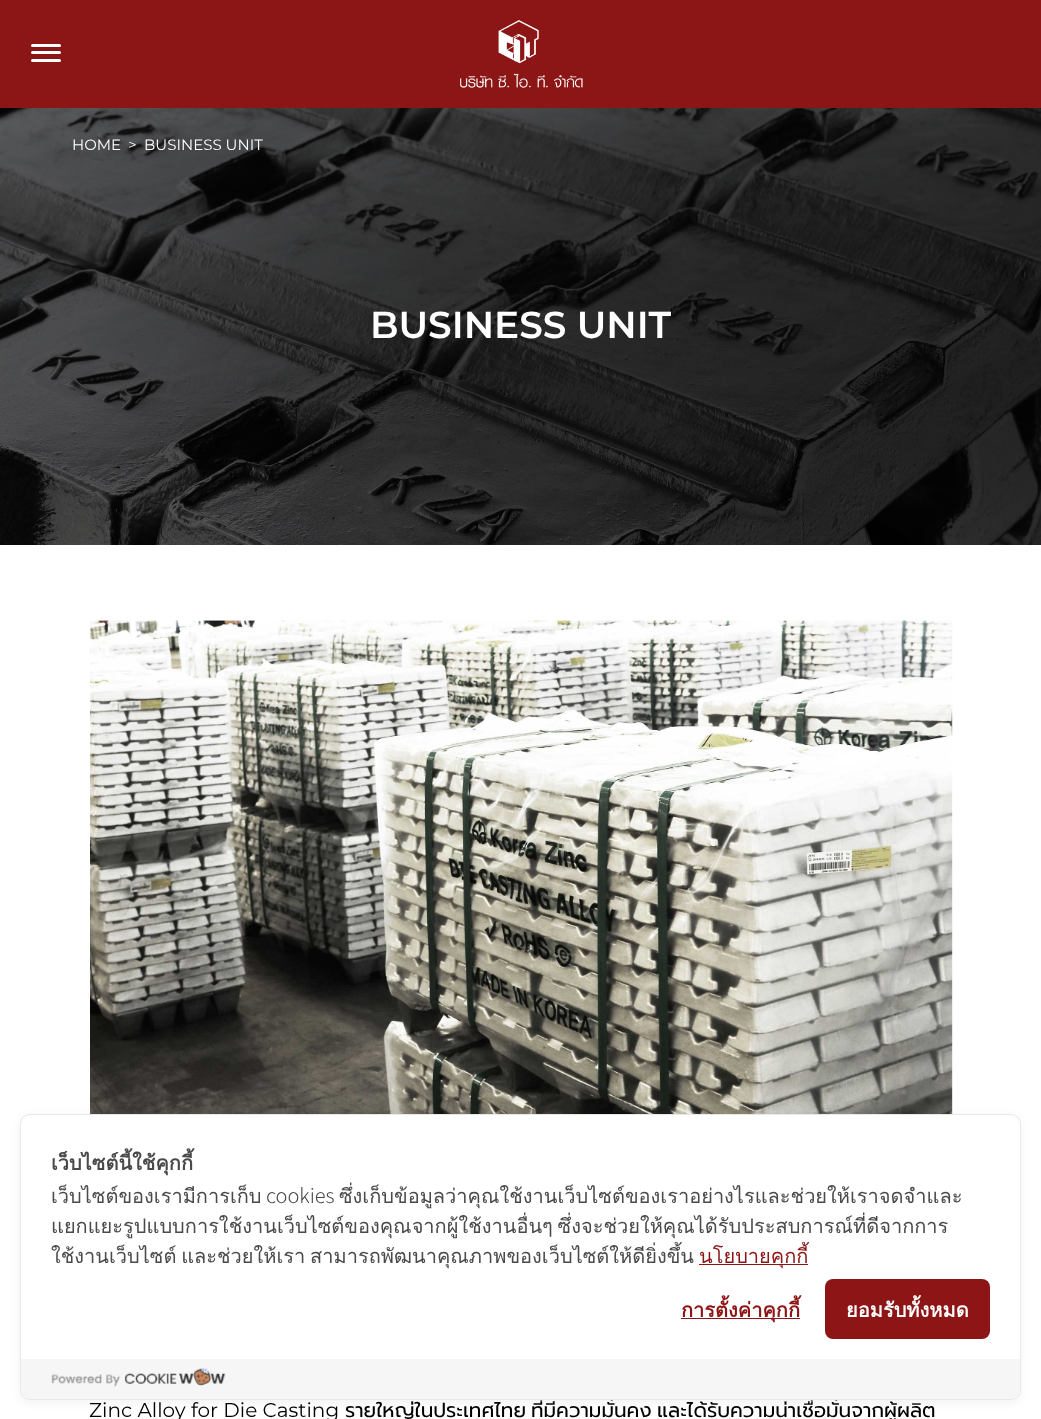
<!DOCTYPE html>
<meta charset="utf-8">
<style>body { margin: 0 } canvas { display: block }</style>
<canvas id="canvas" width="1041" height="1419"></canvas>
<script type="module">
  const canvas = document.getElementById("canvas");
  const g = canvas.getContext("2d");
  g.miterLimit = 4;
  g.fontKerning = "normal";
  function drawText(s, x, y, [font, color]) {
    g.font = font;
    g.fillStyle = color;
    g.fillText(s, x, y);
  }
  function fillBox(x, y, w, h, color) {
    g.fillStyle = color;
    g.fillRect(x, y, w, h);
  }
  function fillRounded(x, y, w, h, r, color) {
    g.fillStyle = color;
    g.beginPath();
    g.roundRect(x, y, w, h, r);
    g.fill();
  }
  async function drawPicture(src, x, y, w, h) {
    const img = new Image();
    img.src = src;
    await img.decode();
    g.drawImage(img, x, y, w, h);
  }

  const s1 = ["15px Montserrat", "#FFFFFF"];
  const s2 = ["600 37.5px Montserrat", "#FFFFFF"];
  const s3 = ["20px Montserrat", "#000000"];
  const s4 = ["20px Prompt", "#000000"];
  const s5 = ["bold 20px Loma", "#4A4A4A"];
  const s6 = ["20px Loma", "#4A4A4A"];
  const s7 = ["300 20px Noto Sans JP", "#4A4A4A"];
  const s8 = ["20px Loma", "#8D1515"];
  const s9 = ["bold 20px Loma", "#8D1515"];
  const s10 = ["bold 20px Loma", "#FFFFFF"];

  fillBox(0, 0, 1041, 1419, "#FFFFFF");
  fillBox(0, 0, 1041, 108, "#8C1515");
  fillRounded(31, 44, 30, 3, 1.5, "#FFFFFF");
  fillRounded(31, 51, 30, 3, 1.5, "#FFFFFF");
  fillRounded(31, 59, 30, 3, 1.5, "#FFFFFF");
  await drawPicture("pic1.png", 460, 20, 123, 68);
  await drawPicture("pic2.png", 0, 108, 1041, 437);
  drawText("HOME", 72, 150, s1);
  drawText(">", 128, 150, s1);
  drawText("BUSINESS UNIT", 144, 150, s1);
  drawText("BUSINESS UNIT", 370, 338, s2);
  await drawPicture("pic3.png", 90, 620, 863, 494);
  drawText("Zinc Alloy for Die Casting", 89, 1417, s3);
  drawText("รายใหญ่ในประเทศไทย", 345, 1417, s4);
  drawText("ที่มีความมั่นคง", 531, 1417, s4);
  drawText("และได้รับความน่าเชื่อมั่นจากผู้ผลิต", 657, 1417, s4);
  g.fillStyle = "rgba(0, 0, 0, 0.05)";
  g.filter = "blur(5px)";
  g.beginPath();
  g.roundRect(20, 1116, 1001, 287, 10);
  g.fill();
  g.filter = "none";
  g.fillStyle = "#FFFFFF";
  g.beginPath();
  g.roundRect(20.5, 1114.5, 1000, 285, 9.5);
  g.fill();
  g.strokeStyle = "#E8E8E8";
  g.stroke();
  drawText("เว็บไซต์นี้ใช้คุกกี้", 51, 1170, s5);
  drawText("เว็บไซต์ของเรามีการเก็บ", 51, 1203, s6);
  drawText("cookies", 266, 1203, s7);
  drawText("ซึ่งเก็บข้อมูลว่าคุณใช้งานเว็บไซต์ของเราอย่างไรและช่วยให้เราจดจำและ", 339, 1203, s6);
  g.wordSpacing = "-2px";
  drawText("แยกแยะรูปแบบการใช้งานเว็บไซต์ของคุณจากผู้ใช้งานอื่นๆ ซึ่งจะช่วยให้คุณได้รับประสบการณ์ที่ดีจากการ", 51, 1233, s6);
  drawText("ใช้งานเว็บไซต์ และช่วยให้เรา สามารถพัฒนาคุณภาพของเว็บไซต์ให้ดียิ่งขึ้น", 51, 1263, s6);
  fillBox(699, 1264, 109, 1, "#8D1515");
  g.wordSpacing = "0px";
  drawText("นโยบายคุกกี้", 699, 1263, s8);
  fillBox(681, 1318, 119, 1, "#8D1515");
  drawText("การตั้งค่าคุกกี้", 681, 1317, s9);
  fillRounded(825, 1279, 165, 60, 8, "#8D1515");
  drawText("ยอมรับทั้งหมด", 846, 1317, s10);
  g.fillStyle = "#F6F6F6";
  g.beginPath();
  g.roundRect(21, 1359, 999, 40, [0, 0, 10, 10]);
  g.fill();
  await drawPicture("pic4.png", 51, 1367, 175, 20);
</script>
